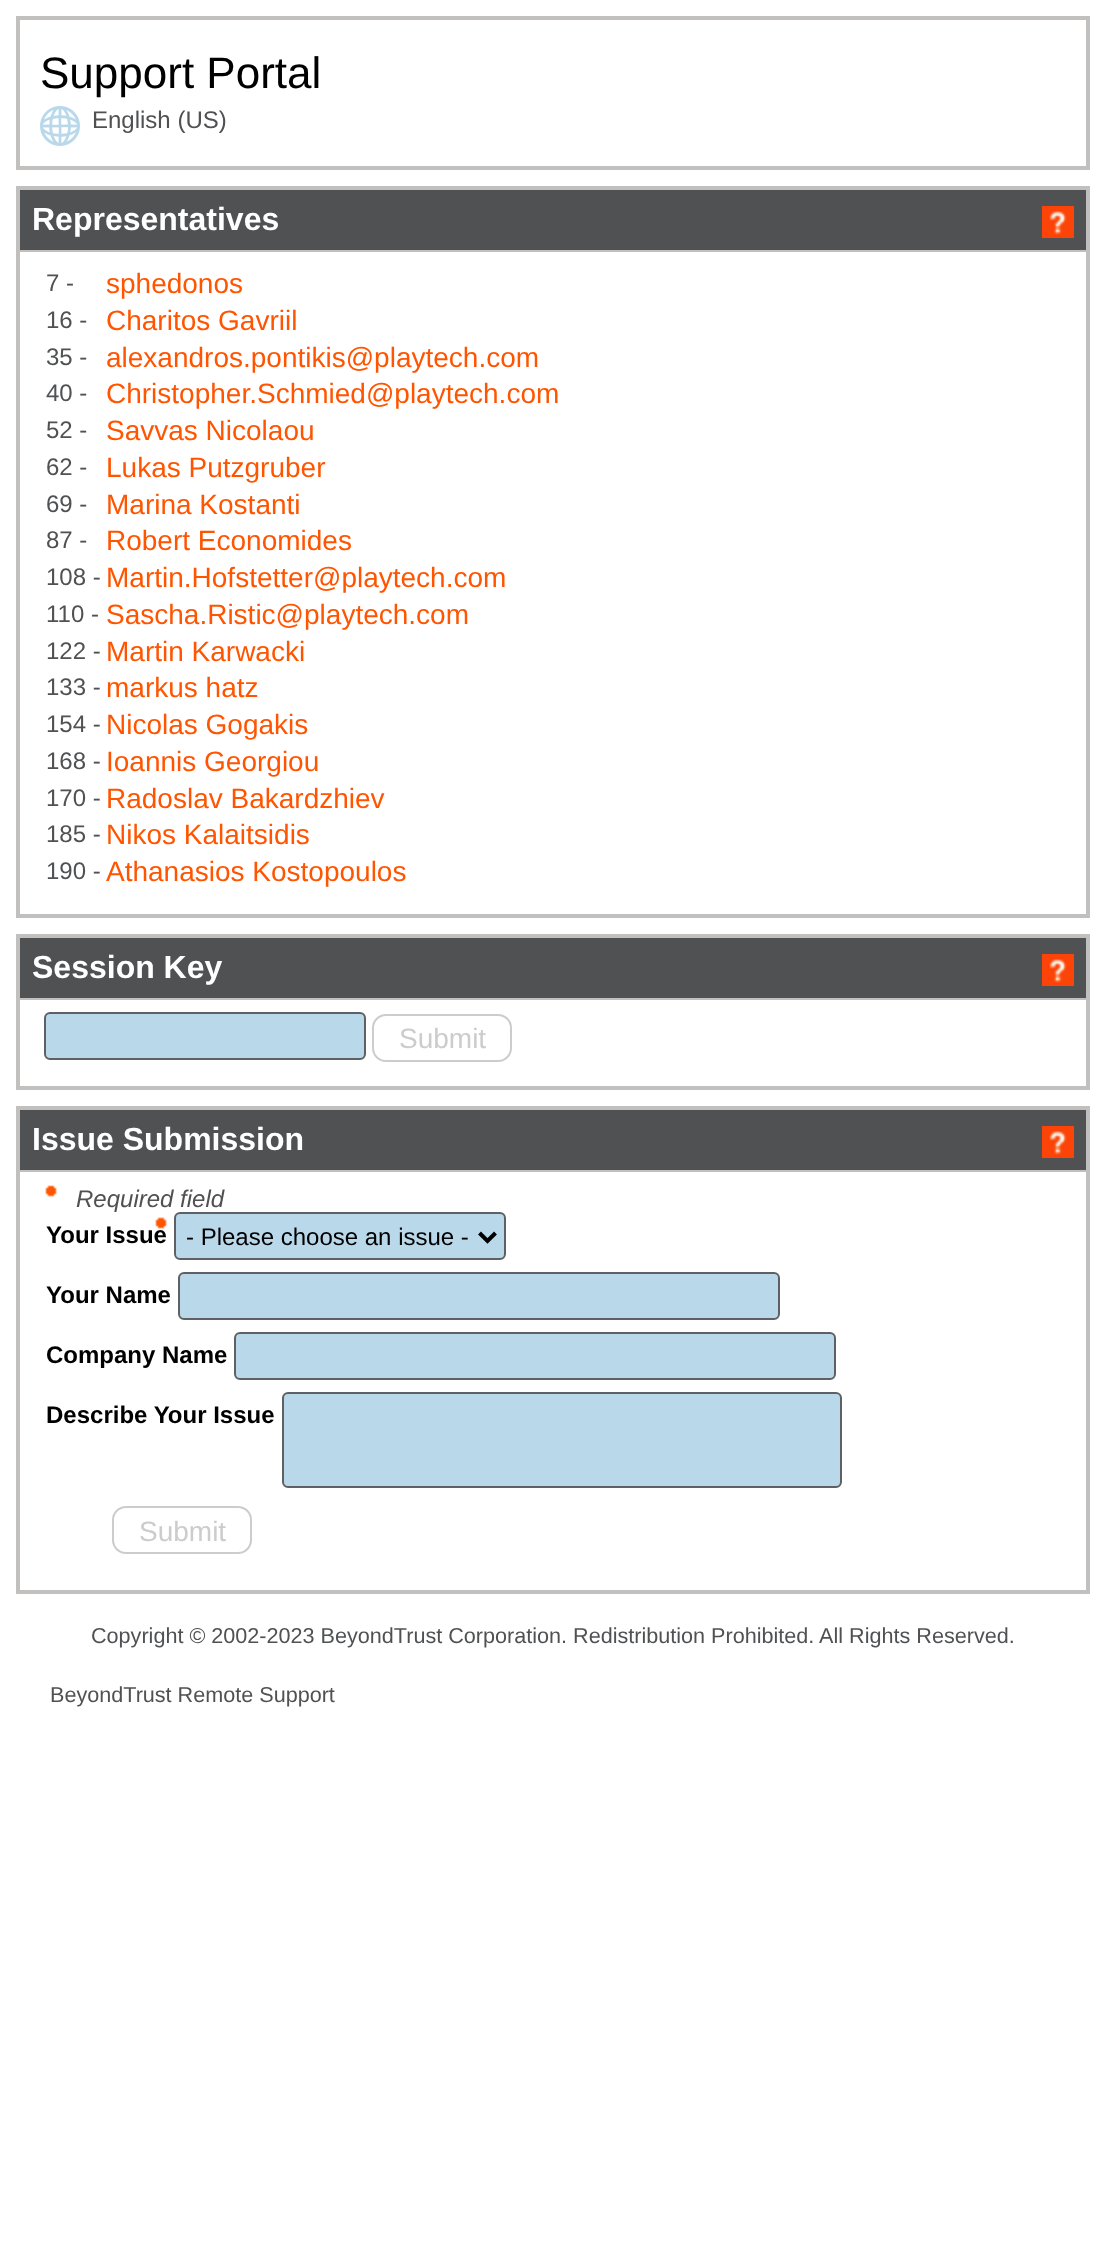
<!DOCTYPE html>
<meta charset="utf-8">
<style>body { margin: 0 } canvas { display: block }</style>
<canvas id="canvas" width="1105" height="2266"></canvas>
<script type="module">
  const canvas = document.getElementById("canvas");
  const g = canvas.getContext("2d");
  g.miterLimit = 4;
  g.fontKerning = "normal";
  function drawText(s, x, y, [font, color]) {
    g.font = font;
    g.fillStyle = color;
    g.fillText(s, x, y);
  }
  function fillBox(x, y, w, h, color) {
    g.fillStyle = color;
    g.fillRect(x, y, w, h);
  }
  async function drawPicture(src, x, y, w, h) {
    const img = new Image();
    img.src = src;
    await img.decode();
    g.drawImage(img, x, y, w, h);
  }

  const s1 = ["44px Liberation Sans", "#000000"];
  const s2 = ["24px Liberation Sans", "#505153"];
  const s3 = ["bold 32px Liberation Sans", "#FFFFFF"];
  const s4 = ["28px Liberation Sans", "#FF5500"];
  const s5 = ["28px Liberation Sans", "#CCCCCC"];
  const s6 = ["italic 24px Liberation Sans", "#505153"];
  const s7 = ["bold 24px Liberation Sans", "#000000"];
  const s8 = ["24px Liberation Sans", "#000000"];
  const s9 = ["21.6px Liberation Sans", "#505153"];

  fillBox(0, 0, 1105, 2266, "#FFFFFF");
  g.strokeStyle = "#C2BFBF";
  g.lineWidth = 4;
  g.strokeRect(18, 18, 1070, 150);
  drawText("Support Portal", 40, 88, s1);
  await drawPicture("pic1.png", 40, 106, 40, 40);
  drawText("English (US)", 92, 128, s2);
  g.strokeRect(18, 188, 1070, 728);
  fillBox(20, 190, 1066, 60, "#505153");
  fillBox(20, 250, 1066, 2, "#C2BFBF");
  drawText("Representatives", 32, 230, s3);
  await drawPicture("pic2.png", 1042, 206, 32, 32);
  drawText("7 -", 46, 291, s2);
  drawText("sphedonos", 106, 293, s4);
  drawText("16 -", 46, 328, s2);
  drawText("Charitos Gavriil", 106, 330, s4);
  drawText("35 -", 46, 365, s2);
  drawText("alexandros.pontikis@playtech.com", 106, 367, s4);
  drawText("40 -", 46, 401, s2);
  drawText("Christopher.Schmied@playtech.com", 106, 403, s4);
  drawText("52 -", 46, 438, s2);
  drawText("Savvas Nicolaou", 106, 440, s4);
  drawText("62 -", 46, 475, s2);
  drawText("Lukas Putzgruber", 106, 477, s4);
  drawText("69 -", 46, 512, s2);
  drawText("Marina Kostanti", 106, 514, s4);
  drawText("87 -", 46, 548, s2);
  drawText("Robert Economides", 106, 550, s4);
  drawText("108 -", 46, 585, s2);
  drawText("Martin.Hofstetter@playtech.com", 106, 587, s4);
  drawText("110 -", 46, 622, s2);
  drawText("Sascha.Ristic@playtech.com", 106, 624, s4);
  drawText("122 -", 46, 659, s2);
  drawText("Martin Karwacki", 106, 661, s4);
  drawText("133 -", 46, 695, s2);
  drawText("markus hatz", 106, 697, s4);
  drawText("154 -", 46, 732, s2);
  drawText("Nicolas Gogakis", 106, 734, s4);
  drawText("168 -", 46, 769, s2);
  drawText("Ioannis Georgiou", 106, 771, s4);
  drawText("170 -", 46, 806, s2);
  drawText("Radoslav Bakardzhiev", 106, 808, s4);
  drawText("185 -", 46, 842, s2);
  drawText("Nikos Kalaitsidis", 106, 844, s4);
  drawText("190 -", 46, 879, s2);
  drawText("Athanasios Kostopoulos", 106, 881, s4);
  g.strokeRect(18, 936, 1070, 152);
  fillBox(20, 938, 1066, 60, "#505153");
  fillBox(20, 998, 1066, 2, "#C2BFBF");
  drawText("Session Key", 32, 978, s3);
  await drawPicture("pic2.png", 1042, 954, 32, 32);
  g.fillStyle = "#B9D9EB";
  g.beginPath();
  g.roundRect(45, 1013, 320, 46, 5);
  g.fill();
  g.strokeStyle = "#5F6063";
  g.lineWidth = 2;
  g.stroke();
  g.beginPath();
  g.roundRect(373, 1015, 138, 46, 13);
  g.strokeStyle = "#CCCCCC";
  g.stroke();
  drawText("Submit", 399, 1048, s5);
  g.strokeStyle = "#C2BFBF";
  g.lineWidth = 4;
  g.strokeRect(18, 1108, 1070, 484);
  fillBox(20, 1110, 1066, 60, "#505153");
  fillBox(20, 1170, 1066, 2, "#C2BFBF");
  drawText("Issue Submission", 32, 1150, s3);
  await drawPicture("pic2.png", 1042, 1126, 32, 32);
  await drawPicture("pic3.png", 45, 1185, 12, 12);
  drawText("Required field", 76, 1207, s6);
  await drawPicture("pic3.png", 155, 1217, 12, 12);
  drawText("Your Issue", 46, 1243, s7);
  g.fillStyle = "#B9D9EB";
  g.beginPath();
  g.roundRect(175, 1213, 330, 46, 5);
  g.fill();
  g.strokeStyle = "#5F6063";
  g.lineWidth = 2;
  g.stroke();
  g.beginPath();
  g.moveTo(479.5, 1233);
  g.lineTo(487.5, 1241);
  g.lineTo(495.5, 1233);
  g.strokeStyle = "#000000";
  g.lineWidth = 4;
  g.stroke();
  drawText("- Please choose an issue -", 186, 1245, s8);
  drawText("Your Name", 46, 1303, s7);
  g.fillStyle = "#B9D9EB";
  g.beginPath();
  g.roundRect(179, 1273, 600, 46, 5);
  g.fill();
  g.strokeStyle = "#5F6063";
  g.lineWidth = 2;
  g.stroke();
  drawText("Company Name", 46, 1363, s7);
  g.fillStyle = "#B9D9EB";
  g.beginPath();
  g.roundRect(235, 1333, 600, 46, 5);
  g.fill();
  g.stroke();
  drawText("Describe Your Issue", 46, 1423, s7);
  g.fillStyle = "#B9D9EB";
  g.beginPath();
  g.roundRect(283, 1393, 558, 94, 5);
  g.fill();
  g.stroke();
  g.beginPath();
  g.roundRect(113, 1507, 138, 46, 13);
  g.strokeStyle = "#CCCCCC";
  g.stroke();
  drawText("Submit", 139, 1541, s5);
  drawText("Copyright © 2002-2023 BeyondTrust Corporation. Redistribution Prohibited. All Rights Reserved.", 91, 1643, s9);
  drawText("BeyondTrust Remote Support", 50, 1702, s9);
</script>
